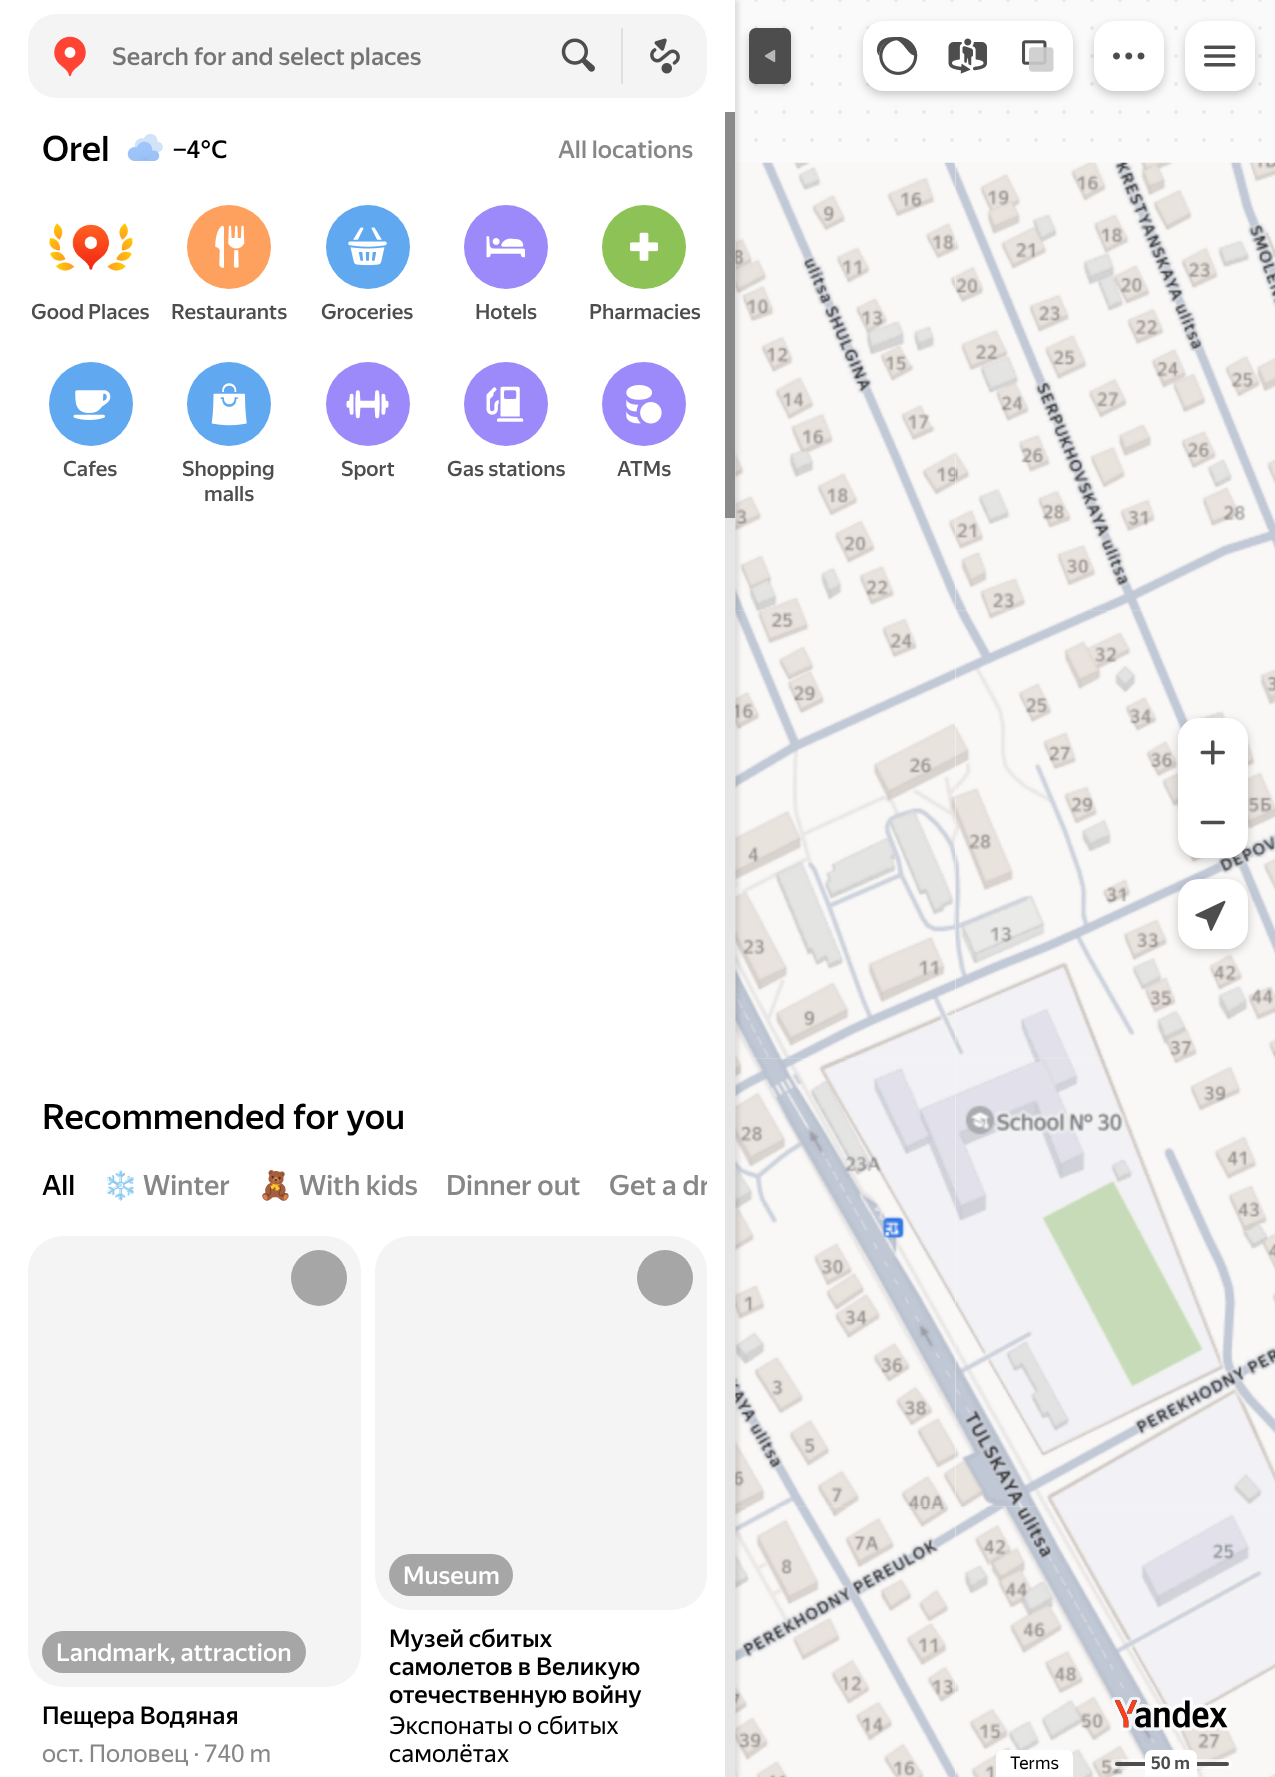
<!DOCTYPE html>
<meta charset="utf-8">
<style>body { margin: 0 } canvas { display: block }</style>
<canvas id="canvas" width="1275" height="1777"></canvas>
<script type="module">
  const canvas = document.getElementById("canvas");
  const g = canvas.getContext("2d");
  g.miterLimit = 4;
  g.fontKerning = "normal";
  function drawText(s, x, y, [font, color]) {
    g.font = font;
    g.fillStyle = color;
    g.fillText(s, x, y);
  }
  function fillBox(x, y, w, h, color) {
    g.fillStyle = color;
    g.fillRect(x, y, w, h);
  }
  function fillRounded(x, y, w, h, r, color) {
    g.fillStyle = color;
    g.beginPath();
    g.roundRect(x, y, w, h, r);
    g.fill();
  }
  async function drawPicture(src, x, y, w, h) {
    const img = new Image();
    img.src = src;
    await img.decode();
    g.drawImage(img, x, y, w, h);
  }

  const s1 = ["500 24.5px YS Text", "#757575"];
  const s2 = ["500 35px YS Text", "#000000"];
  const s3 = ["500 24.5px YS Text", "#000000"];
  const s4 = ["500 24.5px YS Text", "#878787"];
  const s5 = ["500 21px YS Text", "#4D4D4D"];
  const s6 = ["500 28px YS Text", "#000000"];
  const s7 = ["28px Noto Color Emoji", "#878787"];
  const s8 = ["500 28px YS Text", "#878787"];
  const s9 = ["500 24.5px YS Text", "#FFFFFF"];
  const s10 = ["24.5px YS Text", "#878787"];
  const s11 = ["24.5px YS Text", "#000000"];
  const s12 = ["17.5px YS Text", "#000000"];
  const s13 = ["bold 17.5px YS Text", "#4D4D4D"];

  fillBox(0, 0, 1275, 1777, "#FFFFFF");
  await drawPicture("pic1.png", 735, 0, 540, 1777);
  await drawPicture("pic26.png", 735, 162, 221, 449);
  await drawPicture("pic27.png", 955, 162, 320, 449);
  await drawPicture("pic28.png", 735, 610, 221, 449);
  await drawPicture("pic29.png", 955, 610, 320, 449);
  await drawPicture("pic30.png", 735, 1058, 221, 449);
  await drawPicture("pic31.png", 955, 1058, 320, 449);
  await drawPicture("pic32.png", 735, 1506, 221, 271);
  g.fillStyle = "rgba(0, 0, 0, 0.1)";
  g.filter = "blur(2px)";
  g.beginPath();
  g.rect(4, 0, 735, 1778);
  g.fill();
  g.filter = "none";
  g.fillStyle = "rgba(0, 0, 0, 0.2)";
  g.filter = "blur(5px)";
  g.beginPath();
  g.roundRect(749, 32, 42, 56, 7);
  g.fill();
  g.filter = "none";
  fillBox(1, 0, 734, 1777, "#FFFFFF");
  fillRounded(28, 14, 679, 84, 28, "#F4F4F4");
  await drawPicture("pic2.png", 54, 36, 32, 41);
  drawText("Search for and select places", 112, 65, s1);
  await drawPicture("pic3.png", 561, 38, 34, 34);
  fillBox(621, 28, 2, 56, "#E0E0E0");
  await drawPicture("pic4.png", 650, 38, 30, 36);
  g.fillStyle = "rgba(0, 0, 0, 0.2)";
  g.filter = "blur(5px)";
  g.beginPath();
  g.roundRect(863, 25, 210, 70, 21);
  g.fill();
  g.filter = "none";
  g.fillStyle = "#FFFFFF";
  g.beginPath();
  g.roundRect(863, 21, 70, 70, [21, 0, 0, 21]);
  g.fill();
  await drawPicture("pic5.png", 876, 37, 42, 38);
  fillBox(933, 21, 70, 70, "#FFFFFF");
  await drawPicture("pic6.png", 948, 38, 39, 36);
  g.beginPath();
  g.roundRect(1003, 21, 70, 70, [0, 21, 21, 0]);
  g.fill();
  await drawPicture("pic7.png", 1022, 40, 32, 32);
  g.fillStyle = "rgba(0, 0, 0, 0.2)";
  g.filter = "blur(5px)";
  g.beginPath();
  g.roundRect(1094, 25, 70, 70, 21);
  g.fill();
  g.filter = "none";
  fillRounded(1094, 21, 70, 70, 21, "#FFFFFF");
  await drawPicture("pic8.png", 1113, 52, 32, 8);
  g.fillStyle = "rgba(0, 0, 0, 0.2)";
  g.filter = "blur(5px)";
  g.beginPath();
  g.roundRect(1185, 25, 70, 70, 21);
  g.fill();
  g.filter = "none";
  fillRounded(1185, 21, 70, 70, 21, "#FFFFFF");
  await drawPicture("pic9.png", 1204, 45, 32, 22);
  g.fillStyle = "rgba(0, 0, 0, 0.2)";
  g.filter = "blur(5px)";
  g.beginPath();
  g.roundRect(1178, 721, 70, 140, 21);
  g.fill();
  g.filter = "none";
  g.fillStyle = "#FFFFFF";
  g.beginPath();
  g.roundRect(1178, 718, 70, 70, [21, 21, 0, 0]);
  g.fill();
  await drawPicture("pic10.png", 1200, 740, 25, 25);
  g.beginPath();
  g.roundRect(1178, 788, 70, 70, [0, 0, 21, 21]);
  g.fill();
  await drawPicture("pic11.png", 1200, 820, 25, 5);
  g.fillStyle = "rgba(0, 0, 0, 0.2)";
  g.filter = "blur(5px)";
  g.beginPath();
  g.roundRect(1178, 882, 70, 70, 21);
  g.fill();
  g.filter = "none";
  fillRounded(1178, 879, 70, 70, 21, "#FFFFFF");
  await drawPicture("pic12.png", 1195, 900, 31, 31);
  fillRounded(749, 28, 42, 56, 7, "#4D4D4D");
  await drawPicture("pic13.png", 764, 49, 12, 14);
  drawText("Orel", 42, 161, s2);
  await drawPicture("pic14.png", 127, 133, 36, 28);
  drawText("−4°C", 173, 158, s3);
  drawText("All locations", 558, 158, s4);
  await drawPicture("pic15.png", 49, 223, 84, 48);
  g.save();
  g.beginPath();
  g.rect(32, 299, 119, 25);
  g.clip();
  drawText("Good", 31, 319, s5);
  g.restore();
  drawText("Places", 88, 319, s5);
  g.fillStyle = "#FFA15E";
  g.beginPath();
  g.arc(229, 247, 42, 0, Math.PI * 2);
  g.fill();
  await drawPicture("pic16.png", 215, 225, 30, 43);
  drawText("Restaurants", 171, 319, s5);
  g.fillStyle = "#60A8F0";
  g.beginPath();
  g.arc(368, 247, 42, 0, Math.PI * 2);
  g.fill();
  await drawPicture("pic17.png", 348, 227, 39, 39);
  drawText("Groceries", 321, 319, s5);
  g.fillStyle = "#9C89FA";
  g.beginPath();
  g.arc(506, 247, 42, 0, Math.PI * 2);
  g.fill();
  await drawPicture("pic18.png", 486, 236, 39, 22);
  drawText("Hotels", 475, 319, s5);
  g.fillStyle = "#8DC257";
  g.beginPath();
  g.arc(644, 247, 42, 0, Math.PI * 2);
  g.fill();
  await drawPicture("pic19.png", 630, 232, 28, 29);
  drawText("Pharmacies", 589, 319, s5);
  g.fillStyle = "#60A8F0";
  g.beginPath();
  g.arc(91, 404, 42, 0, Math.PI * 2);
  g.fill();
  await drawPicture("pic20.png", 73, 390, 38, 30);
  drawText("Cafes", 63, 476, s5);
  g.fillStyle = "#60A8F0";
  g.beginPath();
  g.arc(229, 404, 42, 0, Math.PI * 2);
  g.fill();
  await drawPicture("pic21.png", 211, 383, 36, 43);
  drawText("Shopping", 182, 476, s5);
  drawText("malls", 204, 501, s5);
  g.fillStyle = "#9C89FA";
  g.beginPath();
  g.arc(368, 404, 42, 0, Math.PI * 2);
  g.fill();
  await drawPicture("pic22.png", 346, 390, 43, 29);
  drawText("Sport", 341, 476, s5);
  g.fillStyle = "#9C89FA";
  g.beginPath();
  g.arc(506, 404, 42, 0, Math.PI * 2);
  g.fill();
  await drawPicture("pic23.png", 486, 386, 38, 36);
  drawText("Gas stations", 447, 476, s5);
  g.fillStyle = "#9C89FA";
  g.beginPath();
  g.arc(644, 404, 42, 0, Math.PI * 2);
  g.fill();
  await drawPicture("pic24.png", 626, 385, 36, 39);
  drawText("ATMs", 617, 476, s5);
  drawText("Recommended for you", 42, 1129, s2);
  drawText("All", 42, 1195, s6);
  drawText("❄️", 103, 1195, s7);
  drawText("Winter", 143, 1195, s8);
  drawText("🧸", 258, 1195, s7);
  drawText("With kids", 299, 1195, s8);
  drawText("Dinner out", 446, 1195, s8);
  g.save();
  g.beginPath();
  g.rect(28, 1152, 679, 70);
  g.clip();
  drawText("Get a dr", 609, 1195, s8);
  g.restore();
  fillRounded(28, 1236, 333, 451, 35, "#F4F4F4");
  g.fillStyle = "#A6A6A6";
  g.beginPath();
  g.arc(319, 1278, 28, 0, Math.PI * 2);
  g.fill();
  fillRounded(42, 1631, 264, 42, 21, "#A6A6A6");
  drawText("Landmark, attraction", 56, 1661, s9);
  drawText("Пещера Водяная", 42, 1724, s3);
  drawText("ост. Половец · 740 m", 42, 1762, s10);
  fillRounded(375, 1236, 332, 374, 35, "#F4F4F4");
  g.fillStyle = "#A6A6A6";
  g.beginPath();
  g.arc(665, 1278, 28, 0, Math.PI * 2);
  g.fill();
  fillRounded(389, 1554, 124, 42, 21, "#A6A6A6");
  drawText("Museum", 403, 1584, s9);
  drawText("Музей сбитых", 389, 1647, s3);
  drawText("самолетов в Великую", 389, 1675, s3);
  drawText("отечественную войну", 389, 1703, s3);
  drawText("Экспонаты о сбитых", 389, 1734, s11);
  drawText("самолётах", 389, 1762, s11);
  fillBox(725, 112, 10, 406, "#8A8A8A");
  fillBox(725, 518, 10, 1259, "#E6E6E6");
  await drawPicture("pic33.png", 955, 1506, 320, 271);
  await drawPicture("pic25.png", 1111, 1697, 120, 34);
  g.fillStyle = "#FFFFFF";
  g.beginPath();
  g.moveTo(1003, 1750);
  g.lineTo(1066, 1750);
  g.bezierCurveTo(1070, 1750, 1073, 1753, 1073, 1757);
  g.lineTo(1073, 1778);
  g.lineTo(996, 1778);
  g.lineTo(996, 1757);
  g.bezierCurveTo(996, 1753, 999, 1750, 1003, 1750);
  g.closePath();
  g.fill();
  drawText("Terms", 1010, 1769, s12);
  fillRounded(1111, 1759, 121, 10, 5, "rgba(255, 255, 255, 0.6)");
  fillRounded(1115, 1762, 114, 4, 2, "#4D4D4D");
  g.fillStyle = "#FFFFFF";
  g.beginPath();
  g.moveTo(1152, 1750);
  g.lineTo(1190, 1750);
  g.bezierCurveTo(1194, 1750, 1197, 1753, 1197, 1757);
  g.lineTo(1197, 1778);
  g.lineTo(1145, 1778);
  g.lineTo(1145, 1757);
  g.bezierCurveTo(1145, 1753, 1148, 1750, 1152, 1750);
  g.closePath();
  g.fill();
  drawText("50 m", 1151, 1769, s13);
</script>
